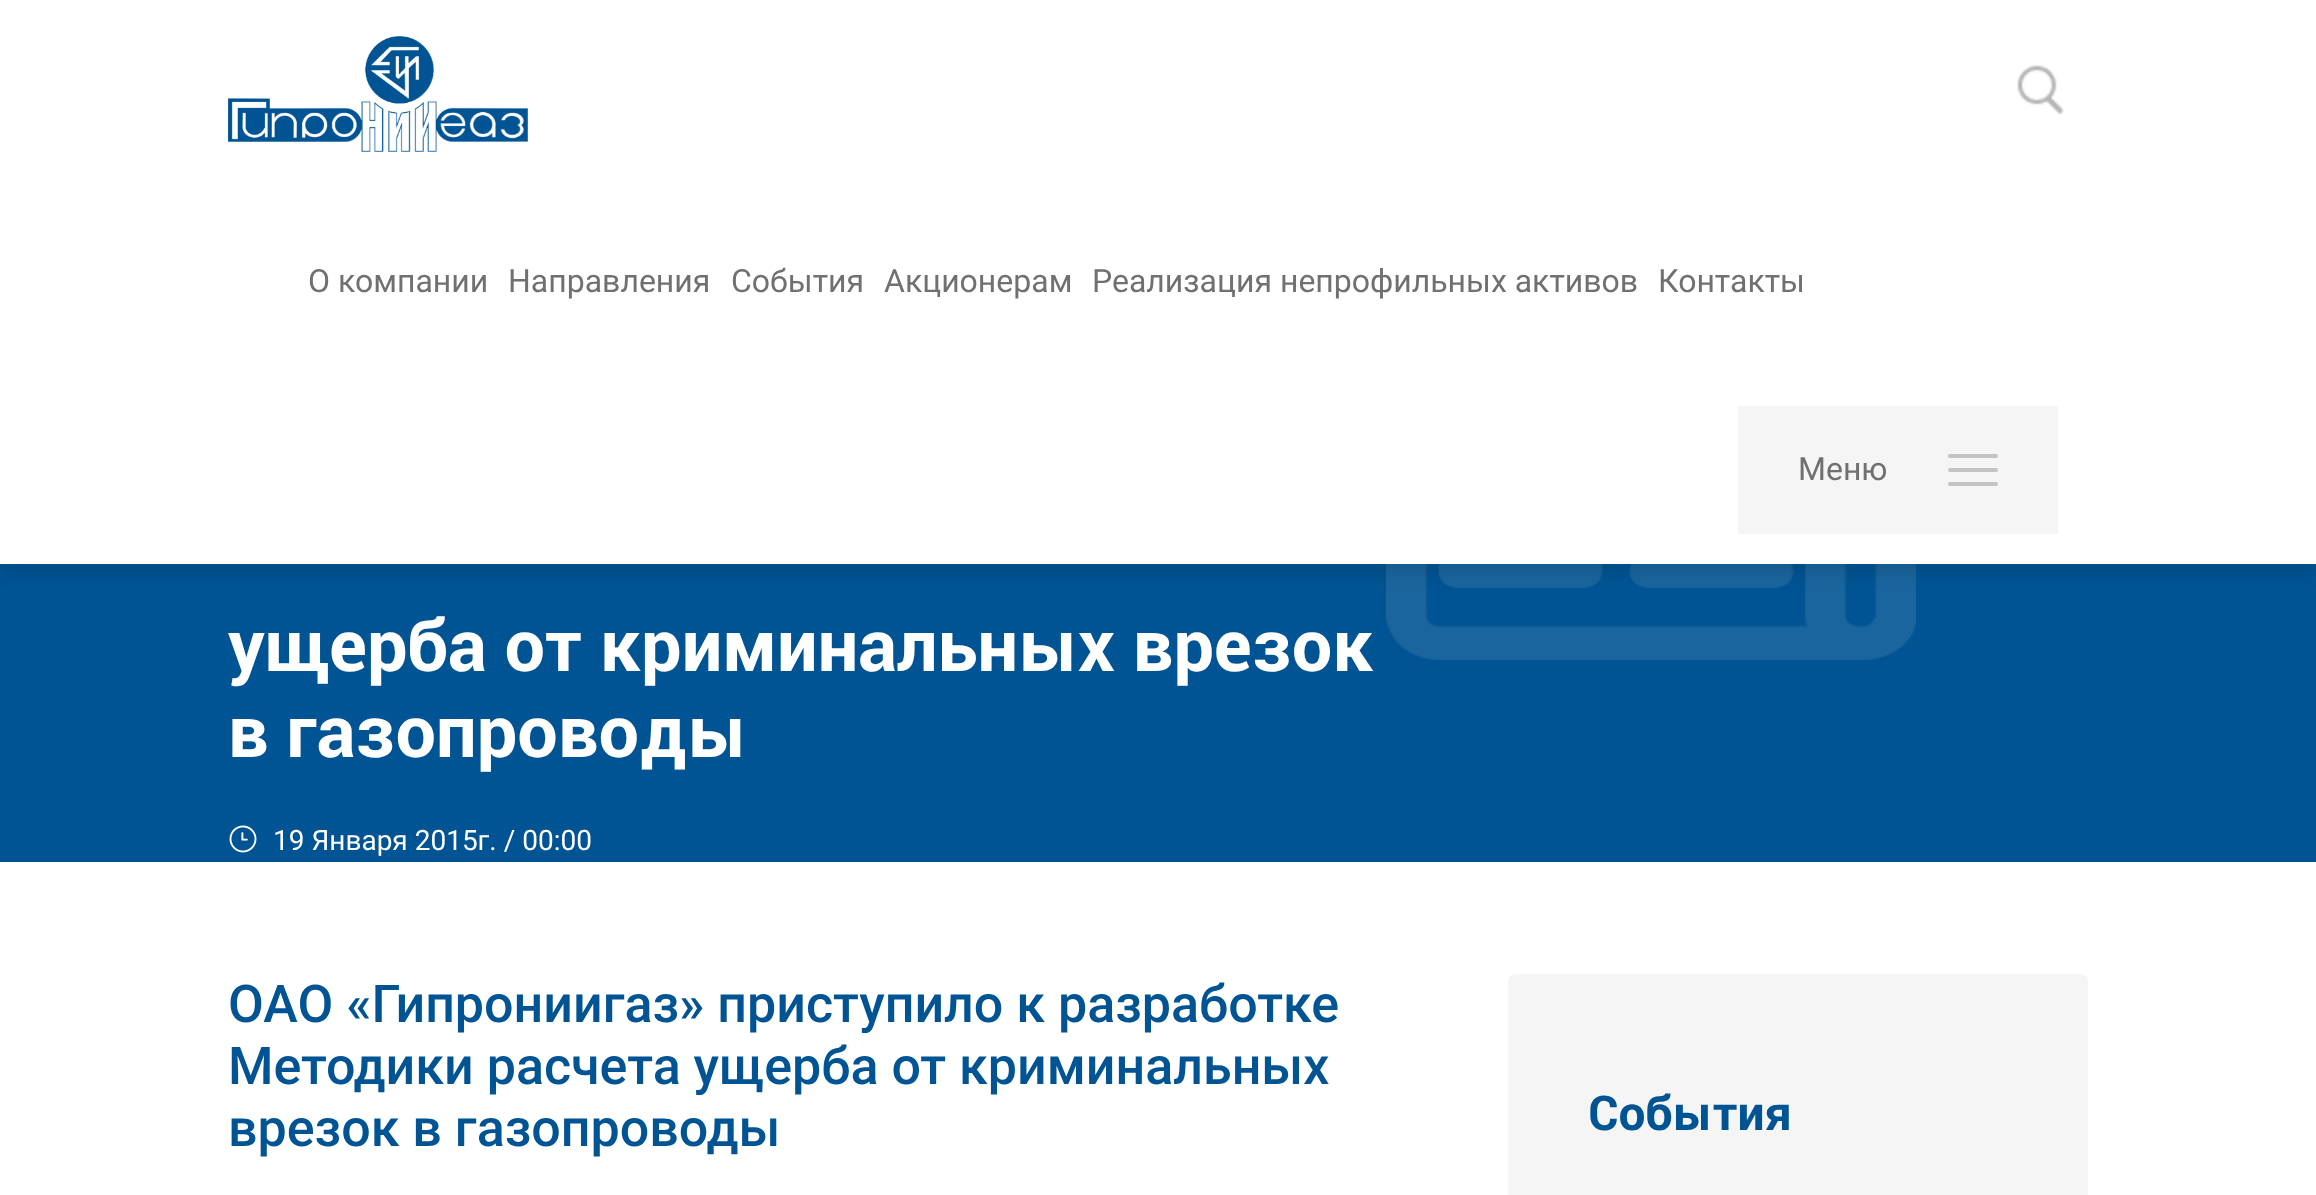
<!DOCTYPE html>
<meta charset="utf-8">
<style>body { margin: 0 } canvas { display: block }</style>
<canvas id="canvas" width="2316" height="1195"></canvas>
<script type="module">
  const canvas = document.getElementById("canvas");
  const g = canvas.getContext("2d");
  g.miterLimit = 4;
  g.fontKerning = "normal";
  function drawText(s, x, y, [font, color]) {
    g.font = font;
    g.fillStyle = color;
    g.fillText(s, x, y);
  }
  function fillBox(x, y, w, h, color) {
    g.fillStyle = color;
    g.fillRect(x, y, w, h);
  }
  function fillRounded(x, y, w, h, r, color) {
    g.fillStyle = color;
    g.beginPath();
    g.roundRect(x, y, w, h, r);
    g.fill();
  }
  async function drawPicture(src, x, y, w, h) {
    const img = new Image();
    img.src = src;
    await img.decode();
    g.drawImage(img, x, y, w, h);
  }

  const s1 = ["32px Roboto", "#707070"];
  const s2 = ["bold 72px Roboto", "#FFFFFF"];
  const s3 = ["28px Roboto", "#FFFFFF"];
  const s4 = ["500 52px Roboto", "#005493"];
  const s5 = ["bold 48px Roboto", "#005493"];

  fillBox(0, 0, 2316, 1195, "#FFFFFF");
  fillBox(0, 564, 2316, 298, "#005493");
  await drawPicture("pic4.png", 1386, 564, 530, 96);
  g.fillStyle = "rgba(0, 0, 0, 0.1)";
  g.filter = "blur(8px)";
  g.beginPath();
  g.rect(0, 10, 2316, 564);
  g.fill();
  g.filter = "none";
  fillBox(0, 0, 2316, 564, "#FFFFFF");
  await drawPicture("pic1.png", 228, 36, 300, 116);
  await drawPicture("pic2.png", 2017, 65, 48, 50);
  drawText("О компании", 308, 292, s1);
  drawText("Направления", 508, 292, s1);
  drawText("События", 731, 292, s1);
  drawText("Акционерам", 884, 292, s1);
  drawText("Реализация непрофильных активов", 1092, 292, s1);
  drawText("Контакты", 1658, 292, s1);
  fillBox(1738, 406, 320, 128, "#F5F5F5");
  drawText("Меню", 1798, 480, s1);
  fillRounded(1948, 454, 50, 4, 2, "#C3C3C3");
  fillRounded(1948, 468, 50, 4, 2, "#C3C3C3");
  fillRounded(1948, 482, 50, 4, 2, "#C3C3C3");
  drawText("ущерба от криминальных врезок", 228, 671, s2);
  drawText("в газопроводы", 228, 757, s2);
  await drawPicture("pic3.png", 229, 825, 28, 28);
  drawText("19 Января 2015г. / 00:00", 273, 850, s3);
  drawText("ОАО «Гипрониигаз» приступило к разработке", 228, 1022, s4);
  drawText("Методики расчета ущерба от криминальных", 228, 1084, s4);
  drawText("врезок в газопроводы", 228, 1146, s4);
  fillRounded(1508, 974, 580, 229, 8, "#F5F5F5");
  drawText("События", 1588, 1130, s5);
</script>
